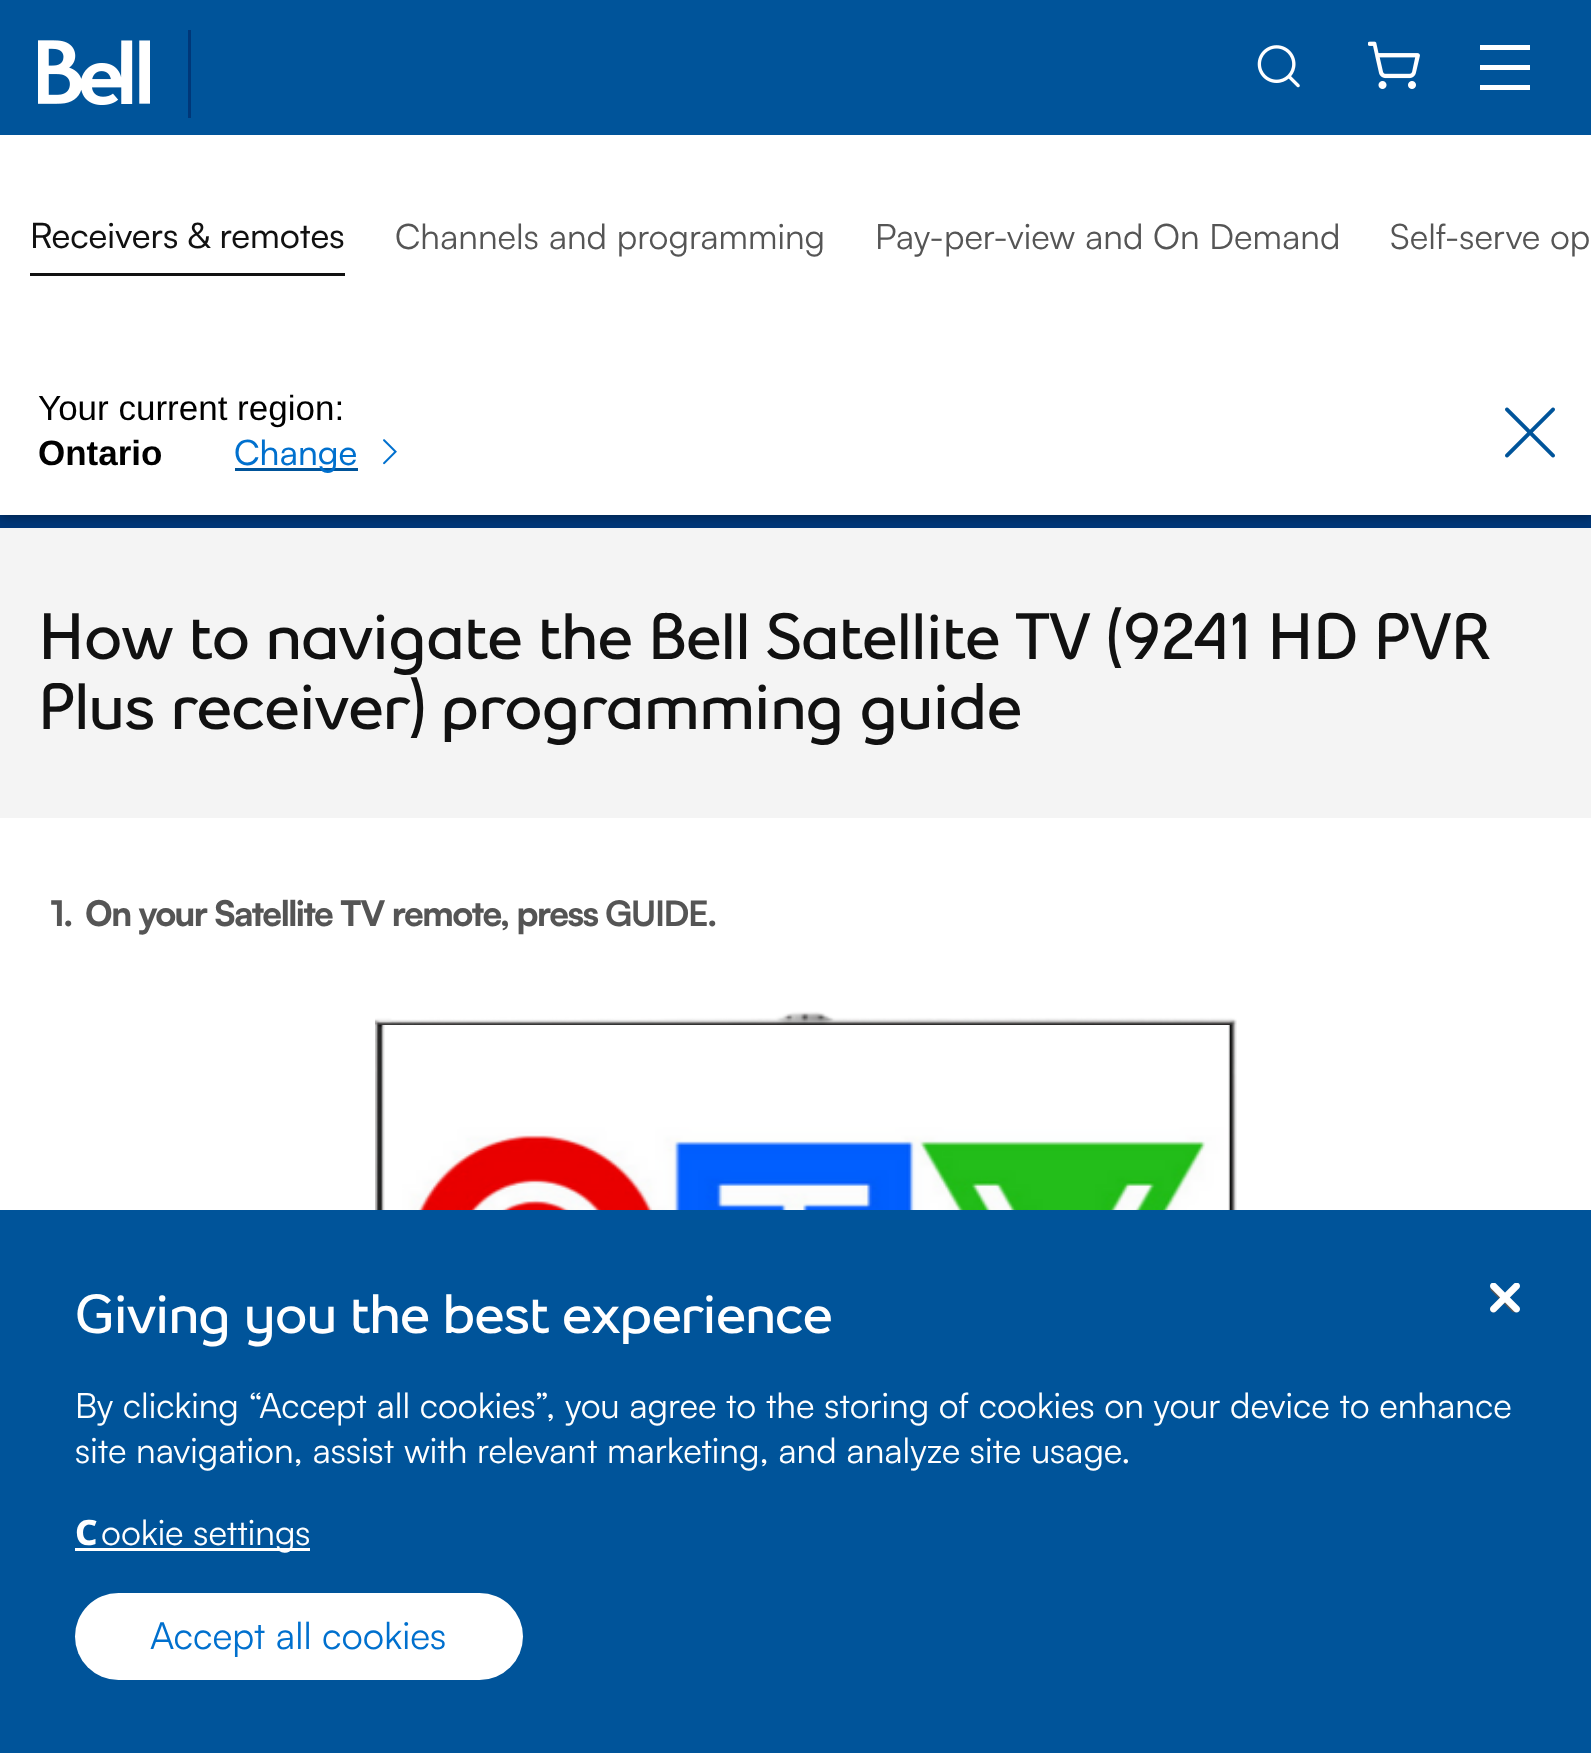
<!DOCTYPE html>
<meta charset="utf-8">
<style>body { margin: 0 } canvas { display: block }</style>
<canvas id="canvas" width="1591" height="1753"></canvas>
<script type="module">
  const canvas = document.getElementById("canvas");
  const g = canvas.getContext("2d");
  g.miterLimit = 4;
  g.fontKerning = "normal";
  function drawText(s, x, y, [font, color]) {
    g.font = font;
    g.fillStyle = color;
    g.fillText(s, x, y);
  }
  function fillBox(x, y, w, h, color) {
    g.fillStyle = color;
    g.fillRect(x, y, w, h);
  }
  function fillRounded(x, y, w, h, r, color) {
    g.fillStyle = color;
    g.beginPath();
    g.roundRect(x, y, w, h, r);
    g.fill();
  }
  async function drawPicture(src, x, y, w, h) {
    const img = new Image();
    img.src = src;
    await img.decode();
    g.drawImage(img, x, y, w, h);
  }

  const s1 = ["35px Satoshi", "#111111"];
  const s2 = ["35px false", "#555555"];
  const s3 = ["35px Liberation Sans", "#000000"];
  const s4 = ["bold 35px Liberation Sans", "#000000"];
  const s5 = ["35px Satoshi", "#0070CE"];
  const s6 = ["900 65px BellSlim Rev", "#111111"];
  const s7 = ["800 35px Satoshi", "#555555"];
  const s8 = ["bold 35px Satoshi", "#555555"];
  const s9 = ["900 55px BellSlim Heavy", "#FFFFFF"];
  const s10 = ["35px 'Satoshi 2'", "#FFFFFF"];
  const s11 = ["800 35px Noto Sans", "#FFFFFF"];
  const s12 = ["37.5px 'Satoshi 2'", "#0070CE"];

  fillBox(0, 0, 1591, 1753, "#003778");
  fillBox(0, 0, 1591, 135, "#00549A");
  await drawPicture("pic1.png", 38, 40, 112, 65);
  fillBox(188, 30, 3, 88, "#003778");
  await drawPicture("pic2.png", 1257, 45, 43, 43);
  await drawPicture("pic3.png", 1368, 41, 52, 48);
  fillBox(1480, 45, 50, 5, "#FFFFFF");
  fillBox(1480, 65, 50, 5, "#FFFFFF");
  fillBox(1480, 85, 50, 5, "#FFFFFF");
  fillBox(0, 528, 1591, 290, "#F4F4F4");
  g.fillStyle = "rgba(0, 0, 0, 0.5)";
  g.filter = "blur(6px)";
  g.beginPath();
  g.rect(0, 350, 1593, 165);
  g.fill();
  g.filter = "none";
  fillBox(0, 135, 1591, 380, "#FFFFFF");
  fillBox(30, 273, 315, 3, "#111111");
  drawText("Receivers & remotes", 30, 248, s1);
  drawText("Channels and programming", 395, 249, s2);
  drawText("Pay-per-view and On Demand", 875, 249, s2);
  drawText("Self-serve op", 1390, 249, s2);
  drawText("Your current region:", 38, 420, s3);
  drawText("Ontario", 38, 465, s4);
  fillBox(235, 468, 123, 3, "#00549A");
  drawText("Change", 234, 465, s5);
  await drawPicture("pic4.png", 383, 439, 14, 26);
  await drawPicture("pic5.png", 1505, 407, 50, 51);
  fillBox(0, 818, 1591, 392, "#FFFFFF");
  g.letterSpacing = "-1px";
  drawText("How to navigate the Bell Satellite TV (9241 HD PVR", 38, 659, s6);
  drawText("Plus receiver) programming guide", 38, 729, s6);
  g.letterSpacing = "-1.5px";
  drawText("1.", 50, 926, s7);
  drawText("On your Satellite TV remote, press", 85, 926, s7);
  drawText("GUIDE", 605, 926, s8);
  drawText(".", 707, 926, s7);
  await drawPicture("pic6.png", 375, 1011, 862, 199);
  await drawPicture("pic7.png", 381, 1025, 849, 185);
  fillBox(0, 1210, 1591, 543, "#00549A");
  await drawPicture("pic8.png", 1490, 1285, 28, 28);
  await drawPicture("pic9.png", 1490, 1283, 30, 30);
  g.letterSpacing = "-1px";
  drawText("Giving you the best experience", 75, 1333, s9);
  g.letterSpacing = "0px";
  drawText("By clicking “Accept all cookies”, you agree to the storing of cookies on your device to enhance", 75, 1418, s10);
  drawText("site navigation, assist with relevant marketing, and analyze site usage.", 75, 1463, s10);
  drawText("C", 75, 1545, s11);
  fillBox(75, 1548, 235, 3, "#FFFFFF");
  drawText("ookie settings", 101, 1545, s10);
  fillRounded(75, 1593, 448, 87, 43.5, "#FFFFFF");
  drawText("Accept all cookies", 150, 1649, s12);
</script>
